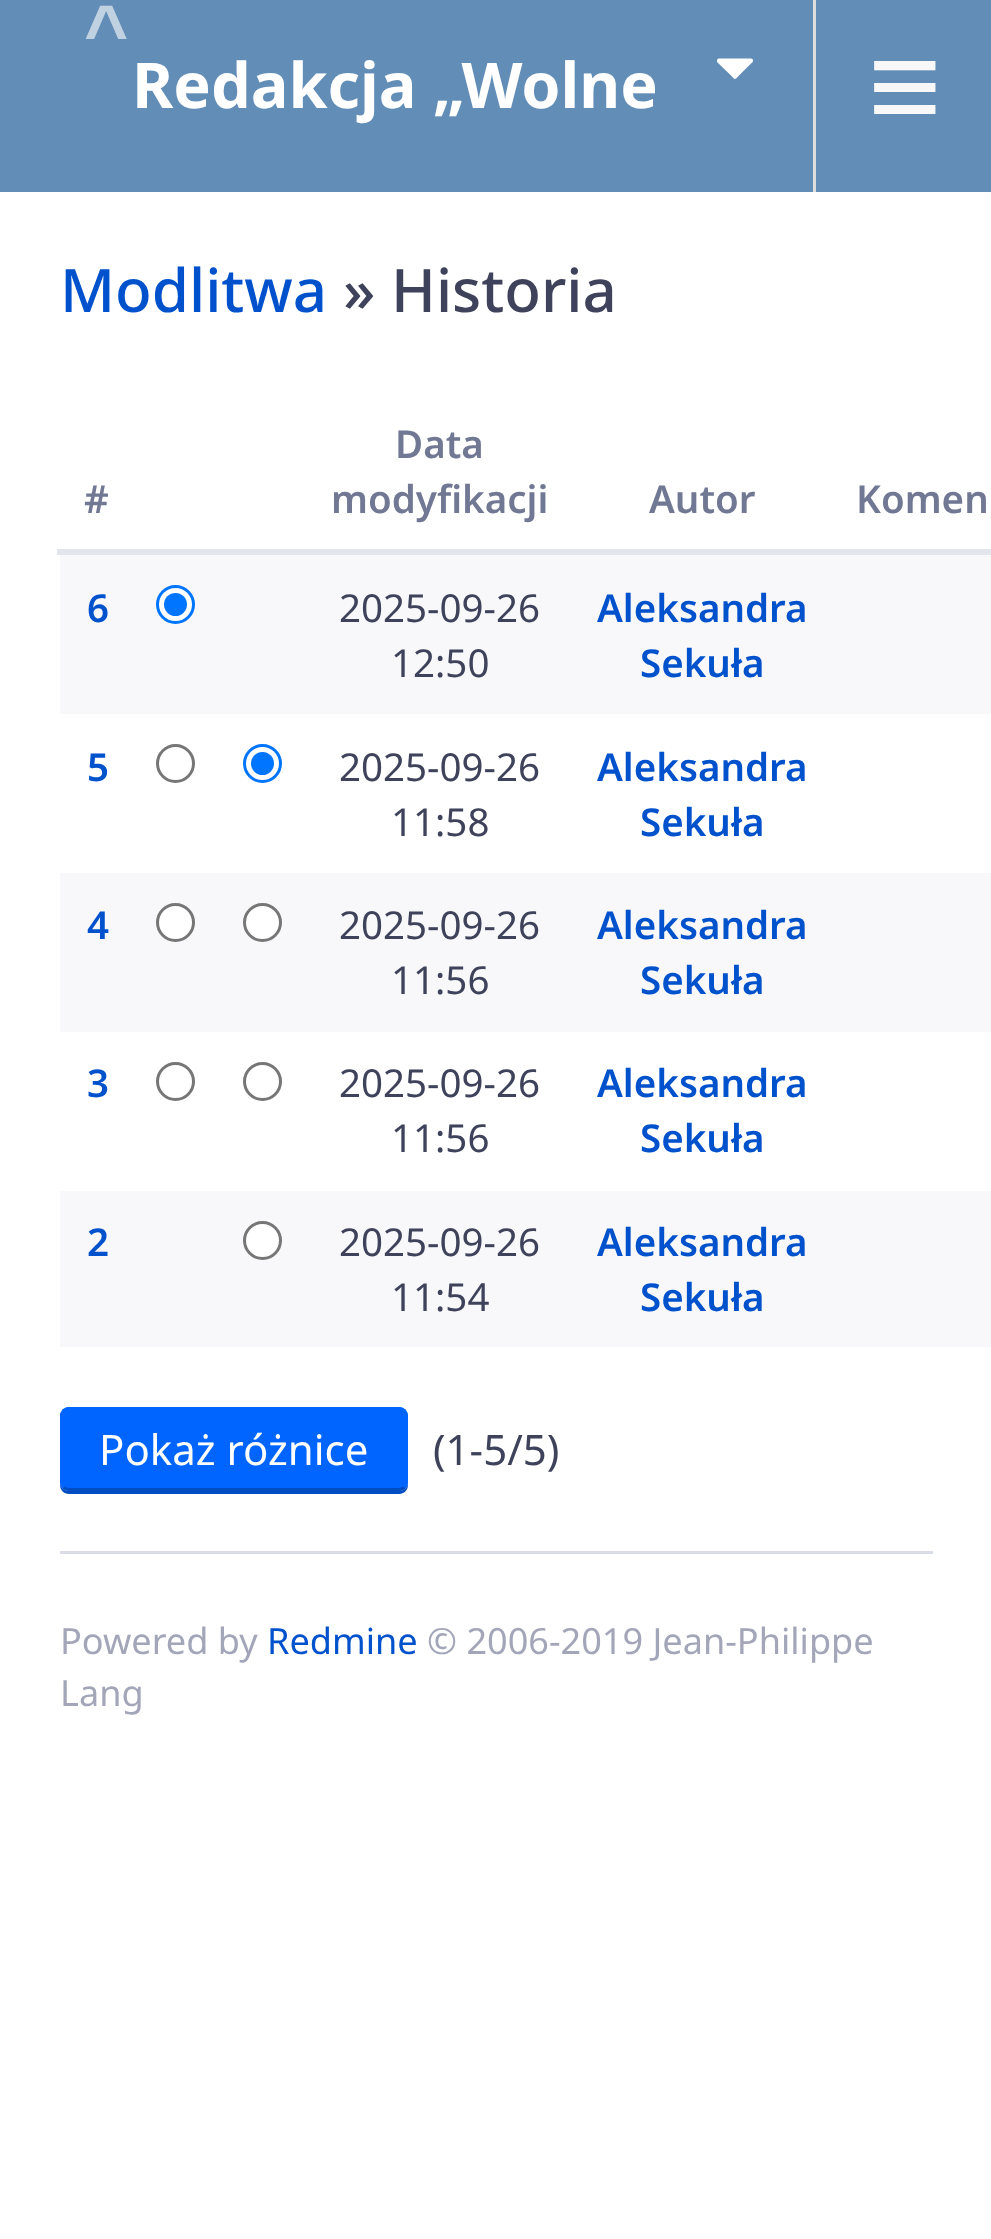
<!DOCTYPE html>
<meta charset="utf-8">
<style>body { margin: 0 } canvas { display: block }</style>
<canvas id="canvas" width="991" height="2239"></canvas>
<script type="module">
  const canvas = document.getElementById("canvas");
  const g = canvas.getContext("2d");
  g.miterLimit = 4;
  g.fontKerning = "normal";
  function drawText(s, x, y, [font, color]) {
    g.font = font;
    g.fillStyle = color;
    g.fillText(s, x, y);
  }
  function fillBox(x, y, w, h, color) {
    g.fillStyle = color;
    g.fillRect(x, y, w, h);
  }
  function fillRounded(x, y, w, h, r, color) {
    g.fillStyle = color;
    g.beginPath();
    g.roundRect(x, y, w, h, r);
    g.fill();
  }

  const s1 = ["bold 76px Liberation Sans", "#C0D1E2"];
  const s2 = ["bold 63px Noto Sans", "#FFFFFF"];
  const s3 = ["126px Liberation Sans", "#F8F8F8"];
  const s4 = ["500 60px Noto Sans", "#0051CC"];
  const s5 = ["500 60px Noto Sans", "#3E425A"];
  const s6 = ["600 38.5px Noto Sans", "#717894"];
  const s7 = ["600 38.5px Noto Sans", "#0051CC"];
  const s8 = ["38.5px Noto Sans", "#3E425A"];
  const s9 = ["42px Noto Sans", "#FFFFFF"];
  const s10 = ["42px Noto Sans", "#3E425A"];
  const s11 = ["36.1px Noto Sans", "#A3A6B8"];
  const s12 = ["36.1px Noto Sans", "#0051CC"];

  fillBox(0, 0, 991, 2239, "#FFFFFF");
  fillBox(0, 0, 991, 192, "#628DB6");
  g.letterSpacing = "11px";
  drawText("^", 84, 58, s1);
  g.letterSpacing = "0px";
  drawText("Redakcja „Wolne", 132, 108, s2);
  g.beginPath();
  g.moveTo(752.5, 59);
  g.bezierCurveTo(754.5, 61.5, 751, 63.5, 749.5, 65);
  g.lineTo(739, 75.5);
  g.bezierCurveTo(735, 80, 735, 80, 731, 75.5);
  g.lineTo(717.5, 62.5);
  g.bezierCurveTo(716.5, 61, 717, 58.5, 719, 58.5);
  g.lineTo(751, 58.5);
  g.closePath();
  g.fill();
  fillBox(813, 0, 3, 192, "#DDDDDD");
  drawText("≡", 868, 129, s3);
  drawText("Modlitwa", 60, 312, s4);
  drawText("» Historia", 343, 312, s5);
  drawText("#", 84, 513, s6);
  drawText("Data", 395, 458, s6);
  drawText("modyfikacji", 331, 513, s6);
  drawText("Autor", 649, 513, s6);
  fillBox(57, 549, 934, 6, "#E3E5ED");
  drawText("Komen", 856, 513, s6);
  fillBox(60, 555, 931, 159, "#F8F8FA");
  drawText("6", 87, 622, s7);
  g.fillStyle = "#FFFFFF";
  g.beginPath();
  g.arc(175.5, 604.5, 18, 0, Math.PI * 2);
  g.fill();
  g.strokeStyle = "#0075FF";
  g.lineWidth = 3;
  g.stroke();
  g.fillStyle = "#0075FF";
  g.beginPath();
  g.arc(175.5, 604.5, 11.5, 0, Math.PI * 2);
  g.fill();
  drawText("2025-09-26", 339, 622, s8);
  drawText("12:50", 391, 677, s8);
  drawText("Aleksandra", 597, 622, s7);
  drawText("Sekuła", 640, 677, s7);
  drawText("5", 87, 781, s7);
  g.beginPath();
  g.arc(175.5, 763.5, 18, 0, Math.PI * 2);
  g.strokeStyle = "#767676";
  g.stroke();
  g.beginPath();
  g.arc(262.5, 763.5, 18, 0, Math.PI * 2);
  g.strokeStyle = "#0075FF";
  g.stroke();
  g.fillStyle = "#0075FF";
  g.beginPath();
  g.arc(262.5, 763.5, 11.5, 0, Math.PI * 2);
  g.fill();
  drawText("2025-09-26", 339, 781, s8);
  drawText("11:58", 391, 836, s8);
  drawText("Aleksandra", 597, 781, s7);
  drawText("Sekuła", 640, 836, s7);
  fillBox(60, 873, 931, 159, "#F8F8FA");
  drawText("4", 87, 939, s7);
  g.fillStyle = "#FFFFFF";
  g.beginPath();
  g.arc(175.5, 922.5, 18, 0, Math.PI * 2);
  g.fill();
  g.strokeStyle = "#767676";
  g.stroke();
  g.beginPath();
  g.arc(262.5, 922.5, 18, 0, Math.PI * 2);
  g.fill();
  g.stroke();
  drawText("2025-09-26", 339, 939, s8);
  drawText("11:56", 391, 994, s8);
  drawText("Aleksandra", 597, 939, s7);
  drawText("Sekuła", 640, 994, s7);
  drawText("3", 87, 1097, s7);
  g.beginPath();
  g.arc(175.5, 1081.5, 18, 0, Math.PI * 2);
  g.stroke();
  g.beginPath();
  g.arc(262.5, 1081.5, 18, 0, Math.PI * 2);
  g.stroke();
  drawText("2025-09-26", 339, 1097, s8);
  drawText("11:56", 391, 1152, s8);
  drawText("Aleksandra", 597, 1097, s7);
  drawText("Sekuła", 640, 1152, s7);
  fillBox(60, 1191, 931, 156, "#F8F8FA");
  drawText("2", 87, 1256, s7);
  g.fillStyle = "#FFFFFF";
  g.beginPath();
  g.arc(262.5, 1240.5, 18, 0, Math.PI * 2);
  g.fill();
  g.stroke();
  drawText("2025-09-26", 339, 1256, s8);
  drawText("11:54", 391, 1311, s8);
  drawText("Aleksandra", 597, 1256, s7);
  drawText("Sekuła", 640, 1311, s7);
  g.fillStyle = "#004DC2";
  g.beginPath();
  g.moveTo(60, 1482);
  g.lineTo(60, 1485);
  g.bezierCurveTo(60, 1490, 64, 1494, 69, 1494);
  g.lineTo(399, 1494);
  g.bezierCurveTo(404, 1494, 408, 1490, 408, 1485);
  g.lineTo(408, 1482);
  g.bezierCurveTo(408, 1487, 404, 1491, 399, 1491);
  g.lineTo(69, 1491);
  g.bezierCurveTo(64, 1491, 60, 1487, 60, 1482);
  g.closePath();
  g.fill();
  fillRounded(60, 1407, 348, 84, 9, "#0065FF");
  g.beginPath();
  g.moveTo(404.5, 1487.5);
  g.bezierCurveTo(403, 1488.5, 401, 1489.5, 399, 1489.5);
  g.lineTo(69, 1489.5);
  g.bezierCurveTo(67, 1489.5, 65, 1488.5, 63.5, 1487.5);
  g.strokeStyle = "#004DC2";
  g.stroke();
  g.beginPath();
  g.moveTo(63.5, 1487.5);
  g.bezierCurveTo(62.5, 1486, 61.5, 1484, 61.5, 1482);
  g.lineTo(61.5, 1416);
  g.bezierCurveTo(61.5, 1414, 62.5, 1412, 63.5, 1410.5);
  g.bezierCurveTo(65, 1409.5, 67, 1408.5, 69, 1408.5);
  g.lineTo(399, 1408.5);
  g.bezierCurveTo(401, 1408.5, 403, 1409.5, 404.5, 1410.5);
  g.bezierCurveTo(405.5, 1412, 406.5, 1414, 406.5, 1416);
  g.lineTo(406.5, 1482);
  g.bezierCurveTo(406.5, 1484, 405.5, 1486, 404.5, 1487.5);
  g.strokeStyle = "#0065FF";
  g.stroke();
  drawText("Pokaż różnice", 99, 1465, s9);
  drawText("(1-5/5)", 433, 1465, s10);
  fillBox(60, 1551, 873, 3, "#DADCE7");
  drawText("Powered by", 60, 1654, s11);
  drawText("Redmine", 267, 1654, s12);
  drawText("© 2006-2019 Jean-Philippe", 427, 1654, s11);
  drawText("Lang", 60, 1706, s11);
</script>
